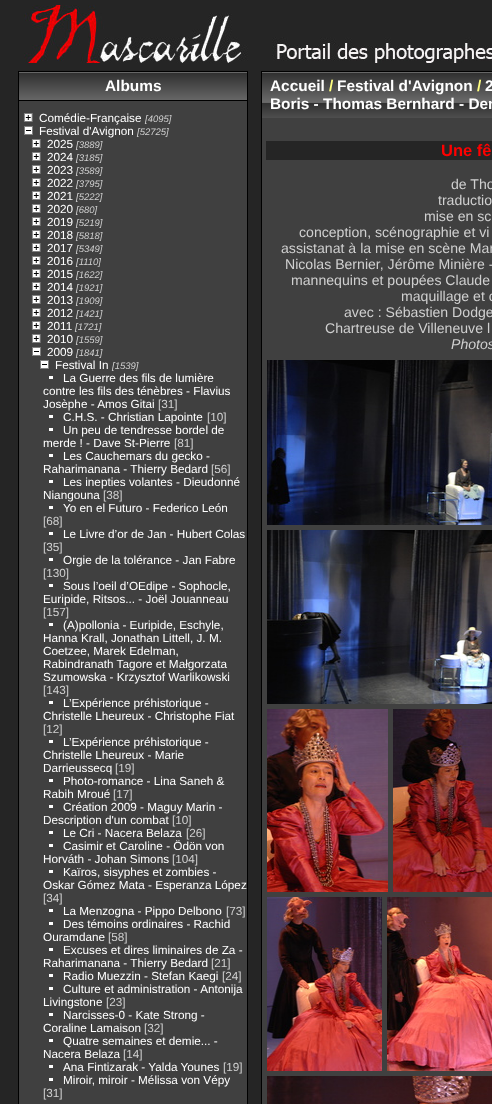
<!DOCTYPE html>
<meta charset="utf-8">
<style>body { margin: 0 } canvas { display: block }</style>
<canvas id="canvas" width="492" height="1104"></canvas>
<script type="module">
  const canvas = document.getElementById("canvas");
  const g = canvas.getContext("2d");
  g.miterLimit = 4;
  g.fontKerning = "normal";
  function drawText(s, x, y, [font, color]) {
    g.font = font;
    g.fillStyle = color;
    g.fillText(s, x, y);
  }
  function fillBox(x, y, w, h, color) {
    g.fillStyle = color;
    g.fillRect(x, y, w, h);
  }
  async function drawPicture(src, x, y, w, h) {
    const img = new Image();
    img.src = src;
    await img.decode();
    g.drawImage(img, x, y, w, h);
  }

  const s1 = ["bold 15.4px Liberation Sans", "#FFFFFF"];
  const s2 = ["11.75px Liberation Sans", "#FFFFFF"];
  const s3 = ["italic 9.5px Liberation Sans", "#D0D0D0"];
  const s4 = ["11.75px Liberation Sans", "#D0D0D0"];
  const s5 = ["bold 15.4px Liberation Sans", "#FFFF80"];
  const s6 = ["bold 16.5px Liberation Sans", "#FF0000"];
  const s7 = ["14.1px Liberation Sans", "#D0D0D0"];
  const s8 = ["italic 14.1px Liberation Sans", "#D0D0D0"];

  fillBox(0, 0, 492, 1104, "#252525");
  await drawPicture("pic1.png", 24, 5, 468, 58);
  fillBox(19, 101, 228, 1003, "#404040");
  g.strokeStyle = "#000000";
  g.strokeRect(18.5, 71.5, 229, 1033);
  await drawPicture("pic2.png", 19, 72, 228, 28);
  fillBox(19, 100, 228, 1, "#000000");
  drawText("Albums", 105, 91, s1);
  await drawPicture("pic3.png", 23, 113, 10, 9);
  drawText("Comédie-Française", 39, 122, s2);
  drawText("[4095]", 145, 122, s3);
  await drawPicture("pic4.png", 24, 126, 9, 9);
  drawText("Festival d'Avignon", 39, 135, s2);
  drawText("[52725]", 137, 135, s3);
  await drawPicture("pic3.png", 31, 139, 10, 9);
  drawText("2025", 47, 148, s2);
  drawText("[3889]", 76, 148, s3);
  await drawPicture("pic3.png", 31, 152, 10, 9);
  drawText("2024", 47, 161, s2);
  drawText("[3185]", 76, 161, s3);
  await drawPicture("pic3.png", 31, 165, 10, 9);
  drawText("2023", 47, 174, s2);
  drawText("[3589]", 76, 174, s3);
  await drawPicture("pic3.png", 31, 178, 10, 9);
  drawText("2022", 47, 187, s2);
  drawText("[3795]", 76, 187, s3);
  await drawPicture("pic3.png", 31, 191, 10, 9);
  drawText("2021", 47, 200, s2);
  drawText("[5222]", 76, 200, s3);
  await drawPicture("pic3.png", 31, 204, 10, 9);
  drawText("2020", 47, 213, s2);
  drawText("[680]", 76, 213, s3);
  await drawPicture("pic3.png", 31, 217, 10, 9);
  drawText("2019", 47, 226, s2);
  drawText("[5219]", 76, 226, s3);
  await drawPicture("pic3.png", 31, 230, 10, 9);
  drawText("2018", 47, 239, s2);
  drawText("[5818]", 76, 239, s3);
  await drawPicture("pic3.png", 31, 243, 10, 9);
  drawText("2017", 47, 252, s2);
  drawText("[5349]", 76, 252, s3);
  await drawPicture("pic3.png", 31, 256, 10, 9);
  drawText("2016", 47, 265, s2);
  drawText("[1110]", 76, 265, s3);
  await drawPicture("pic3.png", 31, 269, 10, 9);
  drawText("2015", 47, 278, s2);
  drawText("[1622]", 76, 278, s3);
  await drawPicture("pic3.png", 31, 282, 10, 9);
  drawText("2014", 47, 291, s2);
  drawText("[1921]", 76, 291, s3);
  await drawPicture("pic3.png", 31, 295, 10, 9);
  drawText("2013", 47, 304, s2);
  drawText("[1909]", 76, 304, s3);
  await drawPicture("pic3.png", 31, 308, 10, 9);
  drawText("2012", 47, 317, s2);
  drawText("[1421]", 76, 317, s3);
  await drawPicture("pic3.png", 31, 321, 10, 9);
  drawText("2011", 47, 330, s2);
  drawText("[1721]", 75, 330, s3);
  await drawPicture("pic3.png", 31, 334, 10, 9);
  drawText("2010", 47, 343, s2);
  drawText("[1559]", 76, 343, s3);
  await drawPicture("pic4.png", 32, 347, 9, 9);
  drawText("2009", 47, 356, s2);
  drawText("[1841]", 76, 356, s3);
  await drawPicture("pic4.png", 40, 360, 9, 9);
  drawText("Festival In", 55, 369, s2);
  drawText("[1539]", 112, 369, s3);
  fillBox(49, 376, 4, 3, "#FFFFFF");
  drawText("La Guerre des fils de lumière", 63, 382, s2);
  drawText("contre les fils des ténèbres - Flavius", 43, 395, s2);
  drawText("Josèphe - Amos Gitai", 43, 408, s2);
  drawText("[31]", 158, 408, s4);
  fillBox(49, 415, 4, 3, "#FFFFFF");
  drawText("C.H.S. - Christian Lapointe", 63, 421, s2);
  drawText("[10]", 207, 421, s4);
  fillBox(49, 428, 4, 3, "#FFFFFF");
  drawText("Un peu de tendresse bordel de", 63, 434, s2);
  drawText("merde ! - Dave St-Pierre", 43, 447, s2);
  drawText("[81]", 174, 447, s4);
  fillBox(49, 454, 4, 3, "#FFFFFF");
  drawText("Les Cauchemars du gecko -", 63, 460, s2);
  drawText("Raharimanana - Thierry Bedard", 43, 473, s2);
  drawText("[56]", 211, 473, s4);
  fillBox(49, 480, 4, 3, "#FFFFFF");
  drawText("Les inepties volantes - Dieudonné", 63, 486, s2);
  drawText("Niangouna", 43, 499, s2);
  drawText("[38]", 103, 499, s4);
  fillBox(49, 506, 4, 3, "#FFFFFF");
  drawText("Yo en el Futuro - Federico León", 63, 512, s2);
  drawText("[68]", 43, 525, s4);
  fillBox(49, 532, 4, 3, "#FFFFFF");
  drawText("Le Livre d’or de Jan - Hubert Colas", 63, 538, s2);
  drawText("[35]", 43, 551, s4);
  fillBox(49, 558, 4, 3, "#FFFFFF");
  drawText("Orgie de la tolérance - Jan Fabre", 63, 564, s2);
  drawText("[130]", 43, 577, s4);
  fillBox(49, 584, 4, 3, "#FFFFFF");
  drawText("Sous l’oeil d’OEdipe - Sophocle,", 63, 590, s2);
  drawText("Euripide, Ritsos... - Joël Jouanneau", 43, 603, s2);
  drawText("[157]", 43, 616, s4);
  fillBox(49, 623, 4, 3, "#FFFFFF");
  drawText("(A)pollonia - Euripide, Eschyle,", 63, 629, s2);
  drawText("Hanna Krall, Jonathan Littell, J. M.", 43, 642, s2);
  drawText("Coetzee, Marek Edelman,", 43, 655, s2);
  drawText("Rabindranath Tagore et Małgorzata", 43, 668, s2);
  drawText("Szumowska - Krzysztof Warlikowski", 43, 681, s2);
  drawText("[143]", 43, 694, s4);
  fillBox(49, 701, 4, 3, "#FFFFFF");
  drawText("L’Expérience préhistorique -", 63, 707, s2);
  drawText("Christelle Lheureux - Christophe Fiat", 43, 720, s2);
  drawText("[12]", 43, 733, s4);
  fillBox(49, 740, 4, 3, "#FFFFFF");
  drawText("L’Expérience préhistorique -", 63, 746, s2);
  drawText("Christelle Lheureux - Marie", 43, 759, s2);
  drawText("Darrieussecq", 43, 772, s2);
  drawText("[19]", 115, 772, s4);
  fillBox(49, 779, 4, 3, "#FFFFFF");
  drawText("Photo-romance - Lina Saneh &", 63, 785, s2);
  drawText("Rabih Mroué", 43, 798, s2);
  drawText("[17]", 113, 798, s4);
  fillBox(49, 805, 4, 3, "#FFFFFF");
  drawText("Création 2009 - Maguy Marin -", 63, 811, s2);
  drawText("Description d'un combat", 43, 824, s2);
  drawText("[10]", 172, 824, s4);
  fillBox(49, 831, 4, 3, "#FFFFFF");
  drawText("Le Cri - Nacera Belaza", 63, 837, s2);
  drawText("[26]", 186, 837, s4);
  fillBox(49, 844, 4, 3, "#FFFFFF");
  drawText("Casimir et Caroline - Ödön von", 63, 850, s2);
  drawText("Horváth - Johan Simons", 43, 863, s2);
  drawText("[104]", 172, 863, s4);
  fillBox(49, 870, 4, 3, "#FFFFFF");
  drawText("Kaïros, sisyphes et zombies -", 63, 876, s2);
  drawText("Oskar Gómez Mata - Esperanza López", 43, 889, s2);
  drawText("[34]", 43, 902, s4);
  fillBox(49, 909, 4, 3, "#FFFFFF");
  drawText("La Menzogna - Pippo Delbono", 63, 915, s2);
  drawText("[73]", 226, 915, s4);
  fillBox(49, 922, 4, 3, "#FFFFFF");
  drawText("Des témoins ordinaires - Rachid", 63, 928, s2);
  drawText("Ouramdane", 43, 941, s2);
  drawText("[58]", 108, 941, s4);
  fillBox(49, 948, 4, 3, "#FFFFFF");
  drawText("Excuses et dires liminaires de Za -", 63, 954, s2);
  drawText("Raharimanana - Thierry Bedard", 43, 967, s2);
  drawText("[21]", 211, 967, s4);
  fillBox(49, 974, 4, 3, "#FFFFFF");
  drawText("Radio Muezzin - Stefan Kaegi", 63, 980, s2);
  drawText("[24]", 222, 980, s4);
  fillBox(49, 987, 4, 3, "#FFFFFF");
  drawText("Culture et administration - Antonija", 63, 993, s2);
  drawText("Livingstone", 43, 1006, s2);
  drawText("[23]", 106, 1006, s4);
  fillBox(49, 1013, 4, 3, "#FFFFFF");
  drawText("Narcisses-0 - Kate Strong -", 63, 1019, s2);
  drawText("Coraline Lamaison", 43, 1032, s2);
  drawText("[32]", 144, 1032, s4);
  fillBox(49, 1039, 4, 3, "#FFFFFF");
  drawText("Quatre semaines et demie... -", 63, 1045, s2);
  drawText("Nacera Belaza", 43, 1058, s2);
  drawText("[14]", 123, 1058, s4);
  fillBox(49, 1065, 4, 3, "#FFFFFF");
  drawText("Ana Fintizarak - Yalda Younes", 63, 1071, s2);
  drawText("[19]", 223, 1071, s4);
  fillBox(49, 1078, 4, 3, "#FFFFFF");
  drawText("Miroir, miroir - Mélissa von Vépy", 63, 1084, s2);
  drawText("[31]", 43, 1097, s4);
  fillBox(262, 118, 230, 986, "#404040");
  g.strokeRect(261.5, 71.5, 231, 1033);
  await drawPicture("pic5.png", 262, 72, 230, 46);
  drawText("Accueil", 270, 91, s1);
  drawText("/", 329, 91, s5);
  drawText("Festival d'Avignon", 337, 91, s1);
  drawText("/", 477, 91, s5);
  drawText("2", 485, 91, s1);
  drawText("Boris - Thomas Bernhard - Den", 270, 109, s1);
  fillBox(266, 141, 226, 19, "#252525");
  drawText("Une fê", 441, 156, s6);
  drawText("de Tho", 451, 189, s7);
  drawText("traductio", 438, 205, s7);
  drawText("mise en sc", 424, 221, s7);
  drawText("conception, scénographie et vi", 299, 237, s7);
  drawText("assistanat à la mise en scène Mar", 281, 253, s7);
  drawText("Nicolas Bernier, Jérôme Minière -", 285, 269, s7);
  drawText("mannequins et poupées Claude", 291, 285, s7);
  drawText("maquillage et c", 401, 301, s7);
  drawText("avec : Sébastien Dodge", 344, 317, s7);
  drawText("Chartreuse de Villeneuve l", 325, 333, s7);
  drawText("Photos", 451, 349, s8);
  await drawPicture("pic6.png", 267, 360, 225, 165);
  await drawPicture("pic7.png", 267, 530, 225, 174);
  await drawPicture("pic8.png", 267, 709, 121, 183);
  await drawPicture("pic9.png", 393, 709, 99, 183);
  await drawPicture("pic10.png", 267, 897, 115, 174);
  await drawPicture("pic11.png", 387, 897, 105, 174);
  await drawPicture("pic12.png", 267, 1076, 225, 28);
</script>
